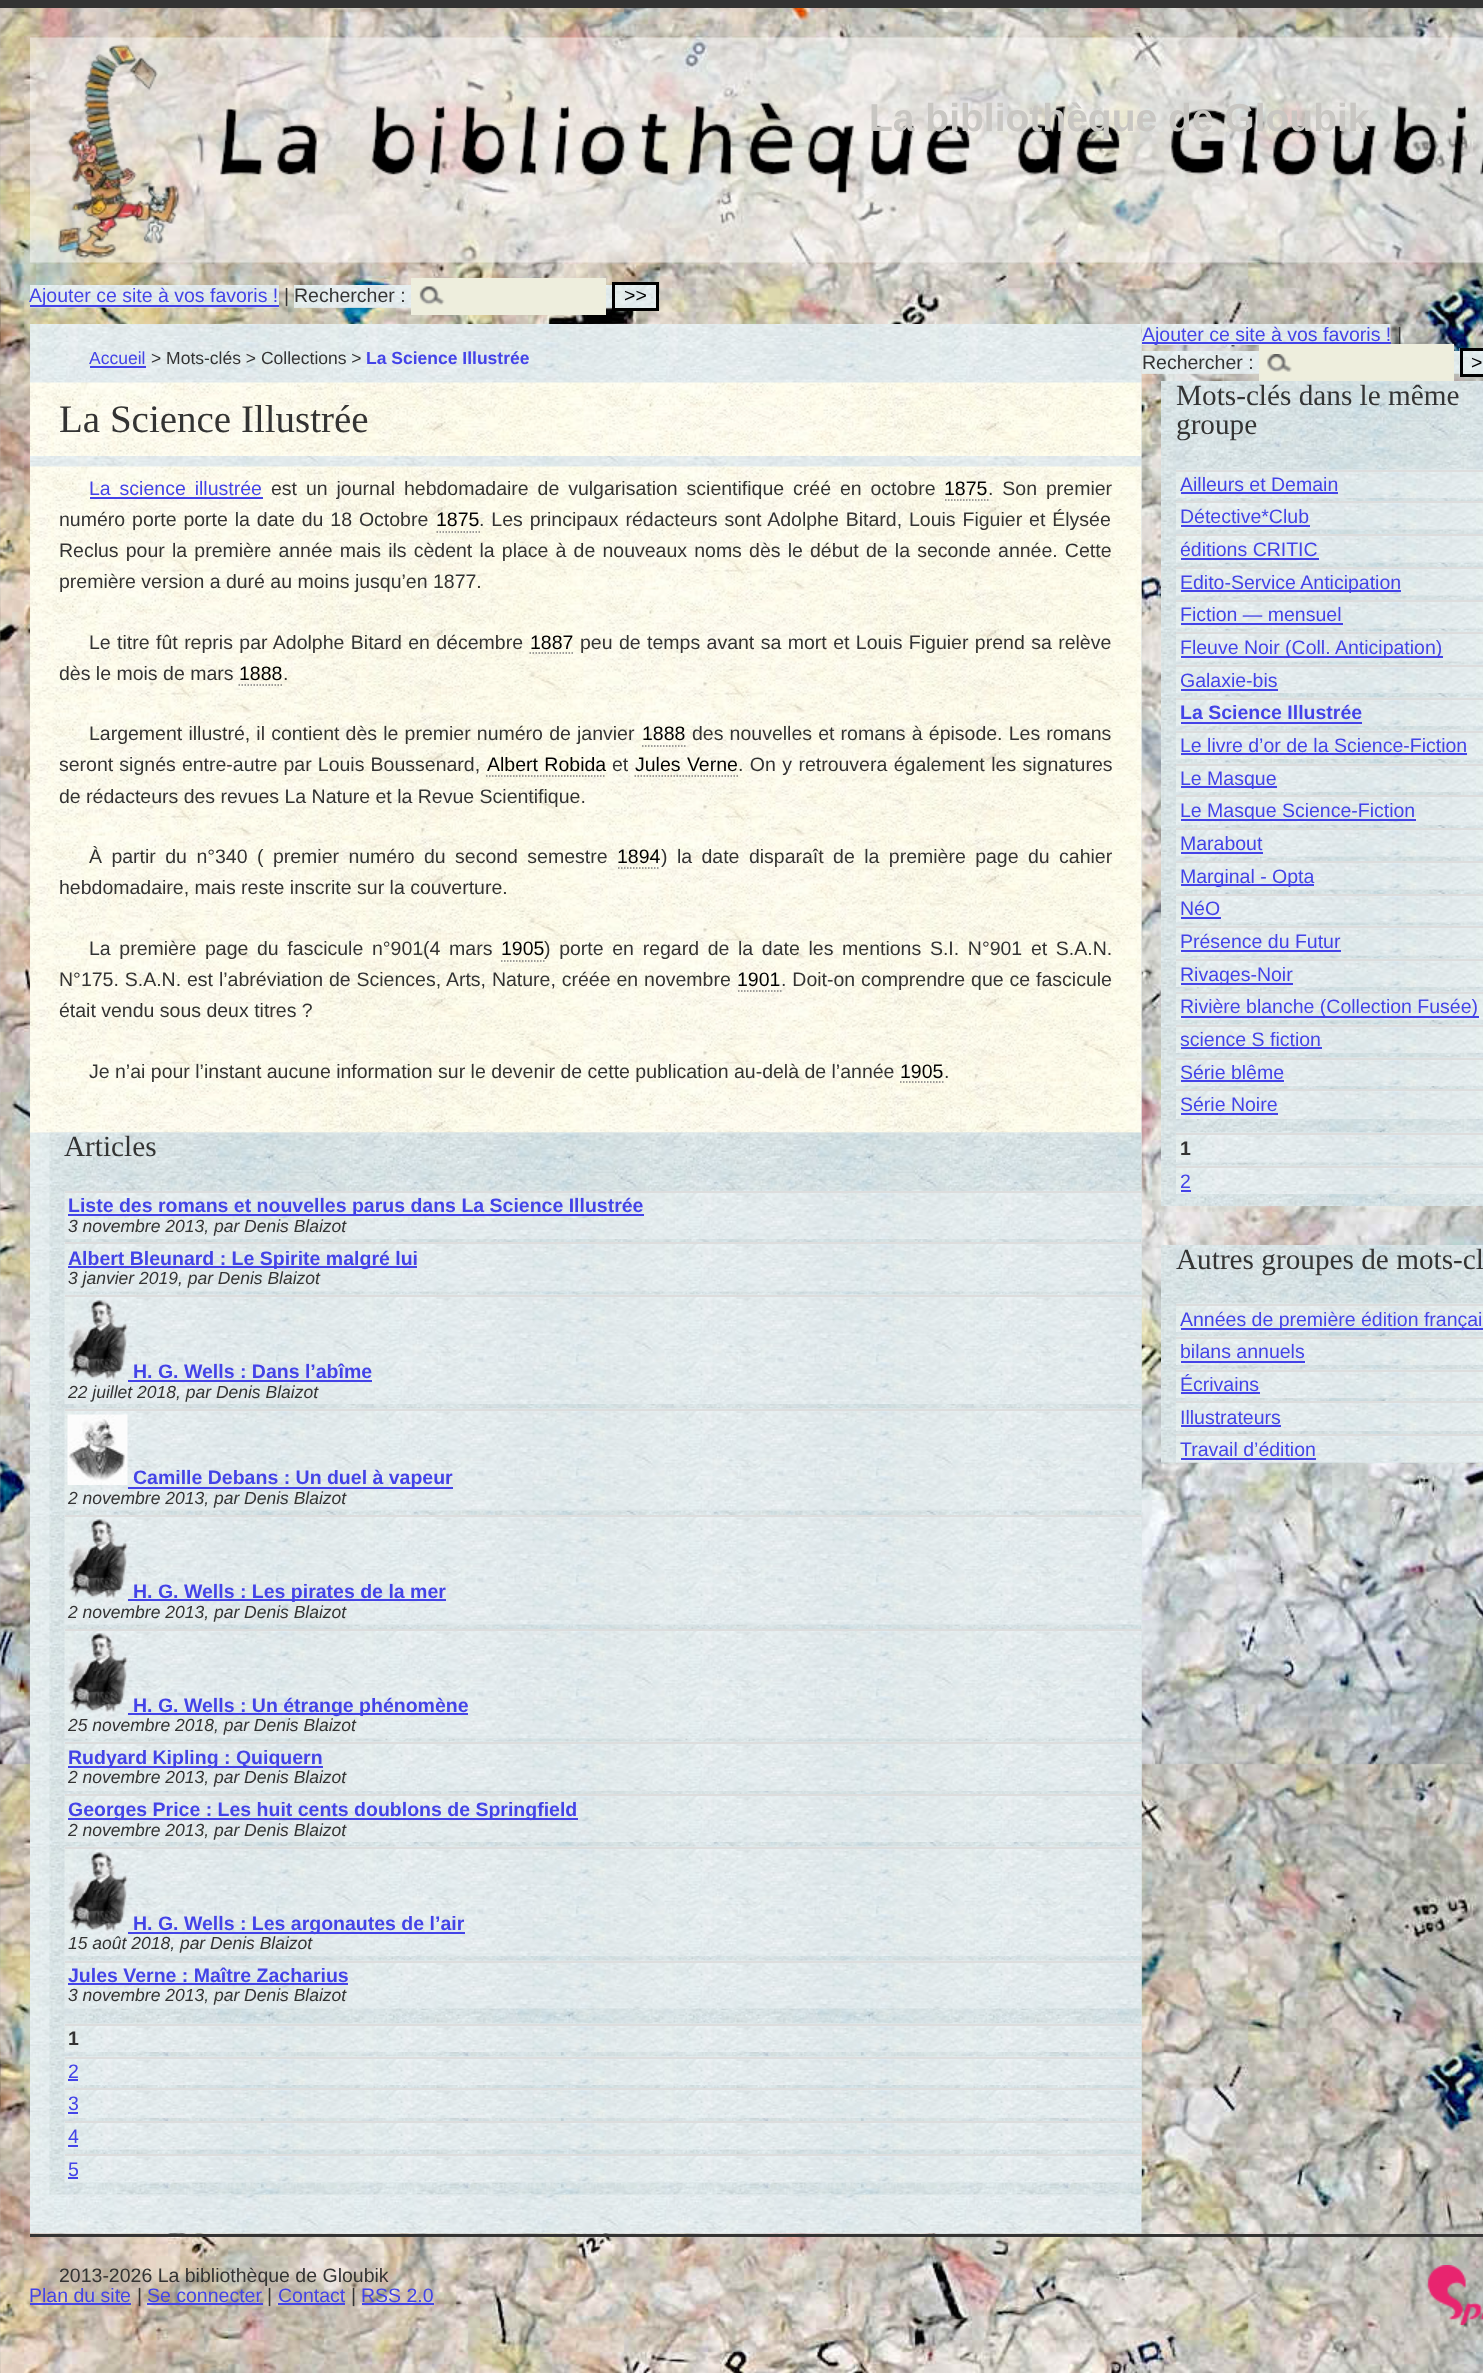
<!DOCTYPE html>
<meta charset="utf-8">
<style>body { margin: 0 } canvas { display: block }</style>
<canvas id="canvas" width="1483" height="2373"></canvas>
<script type="module">
  const canvas = document.getElementById("canvas");
  const g = canvas.getContext("2d");
  g.miterLimit = 4;
  g.fontKerning = "normal";
  function drawText(s, x, y, [font, color]) {
    g.font = font;
    g.fillStyle = color;
    g.fillText(s, x, y);
  }
  function fillBox(x, y, w, h, color) {
    g.fillStyle = color;
    g.fillRect(x, y, w, h);
  }
  async function drawPicture(src, x, y, w, h) {
    const img = new Image();
    img.src = src;
    await img.decode();
    g.drawImage(img, x, y, w, h);
  }

  const s1 = ["bold 39px Liberation Sans", "#C8C6C2"];
  const s2 = ["19.5px Liberation Sans", "#4343E8"];
  const s3 = ["19.5px Liberation Sans", "#333333"];
  const s4 = ["19.5px Liberation Sans", "#000000"];
  const s5 = ["17.5px Liberation Sans", "#4343E8"];
  const s6 = ["17.5px Liberation Sans", "#333333"];
  const s7 = ["bold 17.5px Liberation Sans", "#4343E8"];
  const s8 = ["39px Liberation Serif", "#333333"];
  const s9 = ["29.25px Liberation Serif", "#333333"];
  const s10 = ["bold 19.5px Liberation Sans", "#4343E8"];
  const s11 = ["italic 17.5px Liberation Sans", "#333333"];
  const s12 = ["bold 19.5px Liberation Sans", "#333333"];

  fillBox(0, 0, 1483, 2373, "#FFFFFF");
  await drawPicture("pic1.png", 0, 8, 1483, 2365);
  fillBox(0, 0, 1483, 8, "#333333");
  await drawPicture("pic2.png", 30, 37, 1453, 226);
  drawText("La bibliothèque de Gloubik", 869, 131, s1);
  await drawPicture("pic3.png", 30, 285, 249, 23);
  fillBox(30, 305, 249, 2, "#4343E8");
  drawText("Ajouter ce site à vos favoris !", 29, 302, s2);
  drawText("|", 284, 302, s3);
  await drawPicture("pic4.png", 294, 307, 318, 1);
  await drawPicture("pic5.png", 294, 285, 318, 23);
  await drawPicture("pic6.png", 294, 287, 109, 21);
  fillBox(411, 278, 195, 37, "#EEEEDD");
  await drawPicture("pic7.png", 419, 286, 26, 19);
  drawText("Rechercher :", 294, 302, s3);
  await drawPicture("pic8.png", 615, 285, 41, 23);
  g.strokeStyle = "#000000";
  g.lineWidth = 3;
  g.strokeRect(613.5, 283.5, 44, 26);
  drawText(">>", 624, 302, s4);
  await drawPicture("pic9.png", 30, 324, 1112, 1910);
  await drawPicture("pic10.png", 30, 342, 1112, 1853);
  await drawPicture("pic11.png", 1141, 342, 1, 28);
  drawText("Accueil", 89, 364, s5);
  fillBox(90, 366, 56, 2, "#4343E8");
  drawText("> Mots-clés > Collections >", 151, 364, s6);
  drawText("La Science Illustrée", 366, 364, s7);
  await drawPicture("pic12.png", 30, 382, 1112, 74);
  drawText("La Science Illustrée", 59, 432, s8);
  await drawPicture("pic13.png", 30, 466, 1112, 667);
  g.wordSpacing = "3.5px";
  drawText("La science illustrée", 89, 495, s2);
  fillBox(90, 497, 173, 2, "#4343E8");
  drawText("est un journal hebdomadaire de vulgarisation scientifique créé en octobre", 271, 495, s3);
  g.wordSpacing = "0px";
  drawText("1875", 944, 495, s4);
  g.beginPath();
  g.moveTo(945, 500);
  g.lineTo(988.5, 500);
  g.strokeStyle = "#808080";
  g.lineWidth = 1.5;
  g.setLineDash([1.5, 1.5]);
  g.stroke();
  g.wordSpacing = "3.5px";
  drawText(". Son premier", 988, 495, s3);
  g.wordSpacing = "1.5px";
  drawText("numéro porte porte la date du 18 Octobre", 59, 526, s3);
  g.wordSpacing = "0px";
  drawText("1875", 436, 526, s4);
  g.beginPath();
  g.moveTo(436.5, 532);
  g.lineTo(480, 532);
  g.stroke();
  g.wordSpacing = "1.5px";
  drawText(". Les principaux rédacteurs sont Adolphe Bitard, Louis Figuier et Élysée", 479, 526, s3);
  g.wordSpacing = "1.75px";
  drawText("Reclus pour la première année mais ils cèdent la place à de nouveaux noms dès le début de la seconde année. Cette", 59, 557, s3);
  g.wordSpacing = "0px";
  drawText("première version a duré au moins jusqu’en 1877.", 59, 588, s3);
  g.wordSpacing = "1px";
  drawText("Le titre fût repris par Adolphe Bitard en décembre", 89, 649, s3);
  g.wordSpacing = "0px";
  drawText("1887", 530, 649, s4);
  g.beginPath();
  g.moveTo(529.5, 653);
  g.lineTo(573, 653);
  g.stroke();
  g.wordSpacing = "1px";
  drawText("peu de temps avant sa mort et Louis Figuier prend sa relève", 580, 649, s3);
  g.wordSpacing = "0px";
  drawText("dès le mois de mars", 59, 680, s3);
  drawText("1888", 239, 680, s4);
  g.beginPath();
  g.moveTo(238.5, 685);
  g.lineTo(282, 685);
  g.stroke();
  drawText(".", 283, 680, s3);
  g.wordSpacing = "0.75px";
  drawText("Largement illustré, il contient dès le premier numéro de janvier", 89, 740, s3);
  g.wordSpacing = "0px";
  drawText("1888", 642, 740, s4);
  g.beginPath();
  g.moveTo(642, 746);
  g.lineTo(685.5, 746);
  g.stroke();
  g.wordSpacing = "0.75px";
  drawText("des nouvelles et romans à épisode. Les romans", 692, 740, s3);
  drawText("seront signés entre-autre par Louis Boussenard,", 59, 771, s3);
  g.wordSpacing = "1px";
  drawText("Albert Robida", 487, 771, s4);
  g.beginPath();
  g.moveTo(486, 776);
  g.lineTo(606, 776);
  g.stroke();
  g.wordSpacing = "0px";
  drawText("et", 612, 771, s3);
  g.wordSpacing = "1px";
  drawText("Jules Verne", 635, 771, s4);
  g.beginPath();
  g.moveTo(634.5, 776);
  g.lineTo(738, 776);
  g.stroke();
  drawText(". On y retrouvera également les signatures", 738, 771, s3);
  g.wordSpacing = "0px";
  drawText("de rédacteurs des revues La Nature et la Revue Scientifique.", 59, 803, s3);
  g.wordSpacing = "4px";
  drawText("À partir du n°340 ( premier numéro du second semestre", 89, 863, s3);
  g.wordSpacing = "0px";
  drawText("1894", 617, 863, s4);
  g.beginPath();
  g.moveTo(618, 868);
  g.lineTo(660, 868);
  g.stroke();
  g.wordSpacing = "4px";
  drawText(") la date disparaît de la première page du cahier", 661, 863, s3);
  g.wordSpacing = "0px";
  drawText("hebdomadaire, mais reste inscrite sur la couverture.", 59, 894, s3);
  g.wordSpacing = "3.25px";
  drawText("La première page du fascicule n°901(4 mars", 89, 955, s3);
  g.wordSpacing = "0px";
  drawText("1905", 501, 955, s4);
  g.beginPath();
  g.moveTo(501, 961);
  g.lineTo(544.5, 961);
  g.stroke();
  g.wordSpacing = "3.25px";
  drawText(") porte en regard de la date les mentions S.I. N°901 et S.A.N.", 544, 955, s3);
  g.wordSpacing = "0.5px";
  drawText("N°175. S.A.N. est l’abréviation de Sciences, Arts, Nature, créée en novembre", 59, 986, s3);
  g.wordSpacing = "0px";
  drawText("1901", 737, 986, s4);
  g.beginPath();
  g.moveTo(738, 991);
  g.lineTo(781.5, 991);
  g.stroke();
  g.wordSpacing = "0.5px";
  drawText(". Doit-on comprendre que ce fascicule", 781, 986, s3);
  g.wordSpacing = "0px";
  drawText("était vendu sous deux titres ?", 59, 1017, s3);
  drawText("Je n’ai pour l’instant aucune information sur le devenir de cette publication au-delà de l’année", 89, 1078, s3);
  drawText("1905", 900, 1078, s4);
  g.beginPath();
  g.moveTo(900, 1082);
  g.lineTo(943.5, 1082);
  g.stroke();
  drawText(".", 944, 1078, s3);
  await drawPicture("pic14.png", 49, 1132, 1093, 1063);
  drawText("Articles", 64, 1156, s9);
  await drawPicture("pic15.png", 64, 1191, 1078, 48);
  fillBox(65, 1191, 1077, 2, "#DDDDDD");
  fillBox(68, 1214, 576, 2, "#4343E8");
  drawText("Liste des romans et nouvelles parus dans La Science Illustrée", 68, 1212, s10);
  drawText("3 novembre 2013, par Denis Blaizot", 68, 1232, s11);
  await drawPicture("pic16.png", 64, 1242, 1078, 50);
  fillBox(65, 1242, 1077, 2, "#DDDDDD");
  fillBox(68, 1266, 349, 2, "#4343E8");
  drawText("Albert Bleunard : Le Spirite malgré lui", 68, 1265, s10);
  drawText("3 janvier 2019, par Denis Blaizot", 68, 1284, s11);
  await drawPicture("pic17.png", 64, 1294, 1078, 110);
  fillBox(65, 1295, 1077, 2, "#DDDDDD");
  await drawPicture("pic18.png", 67, 1300, 61, 79);
  drawText("H. G. Wells : Dans l’abîme", 133, 1378, s10);
  fillBox(128, 1380, 244, 2, "#4343E8");
  drawText("22 juillet 2018, par Denis Blaizot", 68, 1398, s11);
  await drawPicture("pic19.png", 64, 1408, 1078, 103);
  fillBox(65, 1409, 1077, 2, "#DDDDDD");
  await drawPicture("pic20.png", 67, 1414, 61, 71);
  fillBox(128, 1487, 325, 2, "#4343E8");
  drawText("Camille Debans : Un duel à vapeur", 133, 1484, s10);
  drawText("2 novembre 2013, par Denis Blaizot", 68, 1504, s11);
  await drawPicture("pic21.png", 64, 1515, 1078, 110);
  fillBox(65, 1515, 1077, 2, "#DDDDDD");
  await drawPicture("pic22.png", 67, 1519, 61, 79);
  fillBox(128, 1599, 318, 2, "#4343E8");
  drawText("H. G. Wells : Les pirates de la mer", 133, 1598, s10);
  drawText("2 novembre 2013, par Denis Blaizot", 68, 1618, s11);
  await drawPicture("pic23.png", 64, 1629, 1078, 110);
  fillBox(65, 1629, 1077, 2, "#DDDDDD");
  await drawPicture("pic22.png", 67, 1633, 61, 79);
  fillBox(128, 1713, 340, 2, "#4343E8");
  drawText("H. G. Wells : Un étrange phénomène", 133, 1712, s10);
  drawText("25 novembre 2018, par Denis Blaizot", 68, 1731, s11);
  await drawPicture("pic24.png", 64, 1741, 1078, 50);
  fillBox(65, 1742, 1077, 2, "#DDDDDD");
  fillBox(68, 1766, 255, 2, "#4343E8");
  drawText("Rudyard Kipling : Quiquern", 68, 1764, s10);
  drawText("2 novembre 2013, par Denis Blaizot", 68, 1783, s11);
  await drawPicture("pic25.png", 64, 1794, 1078, 48);
  fillBox(65, 1794, 1077, 2, "#DDDDDD");
  fillBox(68, 1818, 510, 2, "#4343E8");
  drawText("Georges Price : Les huit cents doublons de Springfield", 68, 1816, s10);
  drawText("2 novembre 2013, par Denis Blaizot", 68, 1836, s11);
  await drawPicture("pic26.png", 64, 1846, 1078, 110);
  fillBox(65, 1847, 1077, 2, "#DDDDDD");
  await drawPicture("pic18.png", 67, 1852, 61, 79);
  fillBox(128, 1932, 337, 2, "#4343E8");
  drawText("H. G. Wells : Les argonautes de l’air", 133, 1930, s10);
  drawText("15 août 2018, par Denis Blaizot", 68, 1949, s11);
  await drawPicture("pic27.png", 64, 1960, 1078, 49);
  fillBox(65, 1961, 1077, 2, "#DDDDDD");
  drawText("Jules Verne : Maître Zacharius", 68, 1982, s10);
  fillBox(68, 1983, 280, 2, "#4343E8");
  drawText("3 novembre 2013, par Denis Blaizot", 68, 2001, s11);
  await drawPicture("pic28.png", 64, 2023, 1078, 29);
  fillBox(65, 2024, 1077, 2, "#DDDDDD");
  drawText("1", 68, 2045, s12);
  await drawPicture("pic29.png", 64, 2056, 1078, 29);
  fillBox(65, 2057, 1077, 2, "#DDDDDD");
  drawText("2", 68, 2078, s2);
  fillBox(68, 2079, 10, 2, "#4343E8");
  await drawPicture("pic30.png", 64, 2088, 1078, 30);
  fillBox(65, 2088, 1077, 2, "#DDDDDD");
  drawText("3", 68, 2110, s2);
  fillBox(68, 2112, 10, 2, "#4343E8");
  await drawPicture("pic31.png", 64, 2121, 1078, 29);
  fillBox(65, 2121, 1077, 2, "#DDDDDD");
  drawText("4", 68, 2143, s2);
  fillBox(68, 2145, 10, 2, "#4343E8");
  await drawPicture("pic32.png", 64, 2154, 1078, 29);
  fillBox(65, 2154, 1077, 2, "#DDDDDD");
  drawText("5", 68, 2176, s2);
  fillBox(68, 2177, 10, 2, "#4343E8");
  await drawPicture("pic33.png", 1141, 324, 250, 21);
  fillBox(1142, 342, 249, 2, "#4343E8");
  drawText("Ajouter ce site à vos favoris !", 1142, 341, s2);
  drawText("|", 1397, 341, s3);
  await drawPicture("pic34.png", 1141, 351, 319, 23);
  await drawPicture("pic35.png", 1141, 372, 319, 2);
  await drawPicture("pic36.png", 1142, 353, 111, 21);
  fillBox(1259, 344, 195, 37, "#EEEEDD");
  await drawPicture("pic37.png", 1267, 354, 25, 18);
  drawText("Rechercher :", 1142, 369, s3);
  await drawPicture("pic38.png", 1459, 348, 24, 29);
  g.strokeStyle = "#000000";
  g.lineWidth = 3;
  g.setLineDash([]);
  g.strokeRect(1461.5, 349.5, 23, 26);
  drawText(">", 1471, 369, s4);
  await drawPicture("pic39.png", 1161, 381, 322, 825);
  drawText("Mots-clés dans le même", 1176, 405, s9);
  drawText("groupe", 1176, 434, s9);
  await drawPicture("pic40.png", 1176, 469, 307, 29);
  fillBox(1176, 470, 307, 2, "#DDDDDD");
  drawText("Ailleurs et Demain", 1180, 491, s2);
  fillBox(1181, 492, 157, 2, "#4343E8");
  await drawPicture("pic41.png", 1176, 503, 307, 27);
  fillBox(1176, 501, 307, 2, "#DDDDDD");
  drawText("Détective*Club", 1180, 523, s2);
  fillBox(1181, 525, 129, 2, "#4343E8");
  await drawPicture("pic42.png", 1176, 536, 307, 27);
  fillBox(1176, 534, 307, 2, "#DDDDDD");
  drawText("éditions CRITIC", 1180, 556, s2);
  fillBox(1181, 558, 138, 2, "#4343E8");
  await drawPicture("pic41.png", 1176, 569, 307, 27);
  fillBox(1176, 567, 307, 2, "#DDDDDD");
  fillBox(1181, 590, 220, 2, "#4343E8");
  drawText("Edito-Service Anticipation", 1180, 589, s2);
  await drawPicture("pic42.png", 1176, 602, 307, 27);
  fillBox(1176, 600, 307, 2, "#DDDDDD");
  drawText("Fiction — mensuel", 1180, 621, s2);
  fillBox(1181, 623, 162, 2, "#4343E8");
  await drawPicture("pic43.png", 1176, 631, 307, 31);
  fillBox(1176, 632, 307, 2, "#DDDDDD");
  fillBox(1181, 656, 262, 2, "#4343E8");
  drawText("Fleuve Noir (Coll. Anticipation)", 1180, 654, s2);
  await drawPicture("pic44.png", 1176, 664, 307, 29);
  fillBox(1176, 665, 307, 2, "#DDDDDD");
  drawText("Galaxie-bis", 1180, 687, s2);
  fillBox(1181, 689, 97, 2, "#4343E8");
  await drawPicture("pic45.png", 1176, 697, 307, 29);
  fillBox(1176, 698, 307, 2, "#DDDDDD");
  drawText("La Science Illustrée", 1180, 719, s10);
  fillBox(1181, 722, 181, 2, "#4343E8");
  await drawPicture("pic44.png", 1176, 730, 307, 29);
  fillBox(1176, 731, 307, 2, "#DDDDDD");
  drawText("Le livre d’or de la Science-Fiction", 1180, 752, s2);
  fillBox(1181, 753, 286, 2, "#4343E8");
  await drawPicture("pic45.png", 1176, 763, 307, 29);
  fillBox(1176, 764, 307, 2, "#DDDDDD");
  fillBox(1181, 786, 96, 2, "#4343E8");
  drawText("Le Masque", 1180, 785, s2);
  await drawPicture("pic46.png", 1176, 797, 307, 28);
  fillBox(1176, 795, 307, 2, "#DDDDDD");
  fillBox(1181, 819, 235, 2, "#4343E8");
  drawText("Le Masque Science-Fiction", 1180, 817, s2);
  await drawPicture("pic47.png", 1176, 830, 307, 27);
  fillBox(1176, 828, 307, 2, "#DDDDDD");
  drawText("Marabout", 1180, 850, s2);
  fillBox(1181, 852, 82, 2, "#4343E8");
  await drawPicture("pic48.png", 1176, 863, 307, 27);
  fillBox(1176, 861, 307, 2, "#DDDDDD");
  fillBox(1181, 884, 133, 2, "#4343E8");
  drawText("Marginal - Opta", 1180, 883, s2);
  await drawPicture("pic47.png", 1176, 896, 307, 27);
  fillBox(1176, 894, 307, 2, "#DDDDDD");
  drawText("NéO", 1180, 915, s2);
  fillBox(1181, 917, 40, 2, "#4343E8");
  await drawPicture("pic49.png", 1176, 925, 307, 31);
  fillBox(1176, 926, 307, 2, "#DDDDDD");
  drawText("Présence du Futur", 1180, 948, s2);
  fillBox(1181, 950, 160, 2, "#4343E8");
  await drawPicture("pic50.png", 1176, 958, 307, 29);
  fillBox(1176, 959, 307, 2, "#DDDDDD");
  fillBox(1181, 983, 112, 2, "#4343E8");
  drawText("Rivages-Noir", 1180, 981, s2);
  await drawPicture("pic51.png", 1176, 991, 307, 29);
  fillBox(1176, 992, 307, 2, "#DDDDDD");
  fillBox(1181, 1016, 298, 2, "#4343E8");
  drawText("Rivière blanche (Collection Fusée)", 1180, 1013, s2);
  await drawPicture("pic50.png", 1176, 1024, 307, 29);
  fillBox(1176, 1025, 307, 2, "#DDDDDD");
  drawText("science S fiction", 1180, 1046, s2);
  fillBox(1181, 1047, 141, 2, "#4343E8");
  await drawPicture("pic51.png", 1176, 1057, 307, 29);
  fillBox(1176, 1058, 307, 2, "#DDDDDD");
  drawText("Série blême", 1180, 1079, s2);
  fillBox(1181, 1080, 103, 2, "#4343E8");
  await drawPicture("pic46.png", 1176, 1091, 307, 28);
  fillBox(1176, 1089, 307, 2, "#DDDDDD");
  drawText("Série Noire", 1180, 1111, s2);
  fillBox(1181, 1113, 97, 2, "#4343E8");
  await drawPicture("pic52.png", 1176, 1132, 307, 31);
  fillBox(1176, 1133, 307, 2, "#DDDDDD");
  drawText("1", 1180, 1155, s12);
  await drawPicture("pic53.png", 1176, 1165, 307, 29);
  fillBox(1176, 1166, 307, 2, "#DDDDDD");
  drawText("2", 1180, 1188, s2);
  fillBox(1181, 1190, 10, 2, "#4343E8");
  await drawPicture("pic54.png", 1161, 1245, 322, 218);
  drawText("Autres groupes de mots-cl", 1176, 1269, s9);
  await drawPicture("pic55.png", 1176, 1303, 307, 29);
  fillBox(1176, 1304, 307, 2, "#DDDDDD");
  fillBox(1181, 1328, 302, 2, "#4343E8");
  drawText("Années de première édition françai", 1180, 1326, s2);
  await drawPicture("pic56.png", 1176, 1336, 307, 29);
  fillBox(1176, 1337, 307, 2, "#DDDDDD");
  drawText("bilans annuels", 1180, 1358, s2);
  fillBox(1181, 1361, 124, 2, "#4343E8");
  await drawPicture("pic55.png", 1176, 1369, 307, 29);
  fillBox(1176, 1370, 307, 2, "#DDDDDD");
  drawText("Écrivains", 1180, 1391, s2);
  fillBox(1181, 1392, 79, 2, "#4343E8");
  await drawPicture("pic46.png", 1176, 1403, 307, 28);
  fillBox(1176, 1401, 307, 2, "#DDDDDD");
  drawText("Illustrateurs", 1180, 1424, s2);
  fillBox(1181, 1425, 100, 2, "#4343E8");
  await drawPicture("pic57.png", 1176, 1436, 307, 27);
  fillBox(1176, 1434, 307, 2, "#DDDDDD");
  drawText("Travail d’édition", 1180, 1456, s2);
  fillBox(1181, 1458, 135, 2, "#4343E8");
  fillBox(30, 2234, 1453, 3, "#333333");
  drawText("2013-2026 La bibliothèque de Gloubik", 59, 2282, s3);
  drawText("Plan du site", 29, 2302, s2);
  fillBox(30, 2303, 101, 2, "#4343E8");
  drawText("|", 137, 2302, s3);
  drawText("Se connecter", 147, 2302, s2);
  fillBox(147, 2303, 116, 2, "#4343E8");
  drawText("|", 267, 2302, s3);
  drawText("Contact", 278, 2302, s2);
  fillBox(278, 2303, 67, 2, "#4343E8");
  drawText("|", 351, 2302, s3);
  drawText("RSS 2.0", 361, 2302, s2);
  fillBox(362, 2303, 72, 2, "#4343E8");
  await drawPicture("pic58.png", 1427, 2265, 56, 60);
</script>
